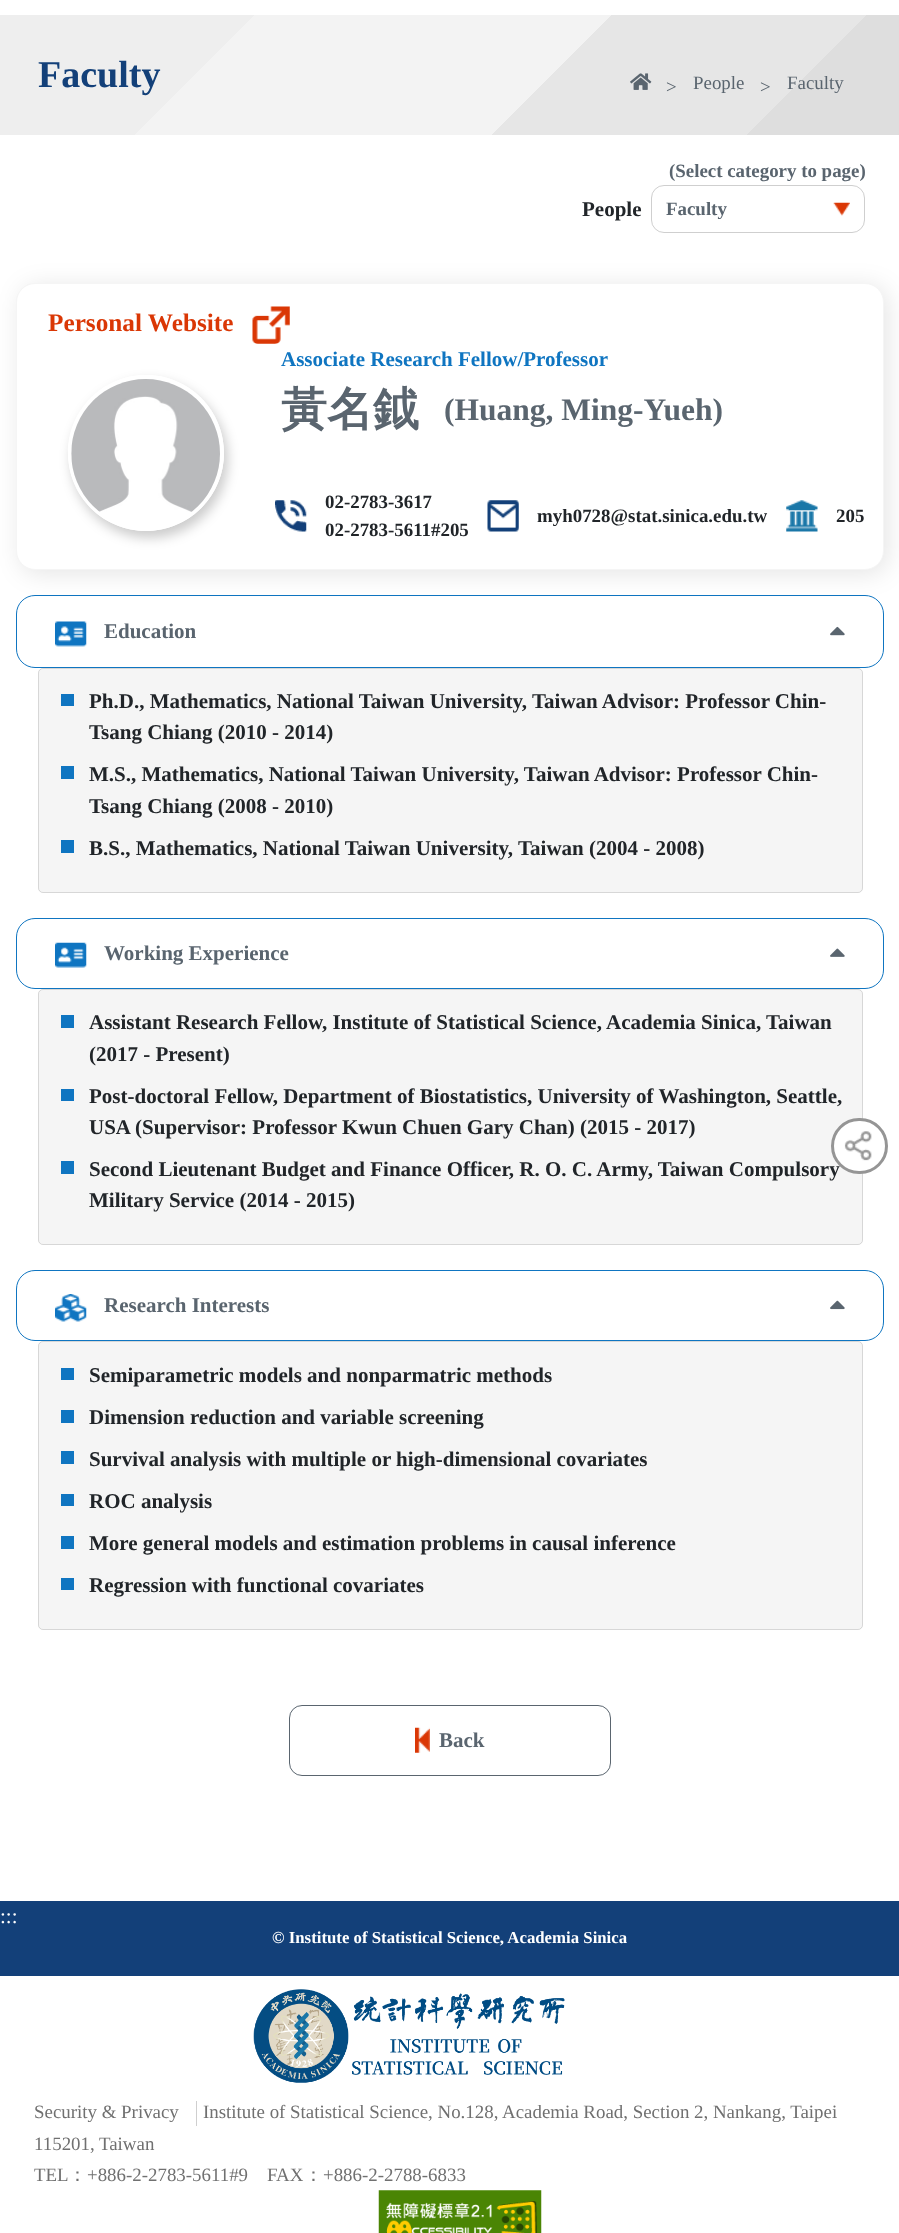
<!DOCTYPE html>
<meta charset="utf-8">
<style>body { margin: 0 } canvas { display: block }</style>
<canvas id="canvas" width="899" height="2233"></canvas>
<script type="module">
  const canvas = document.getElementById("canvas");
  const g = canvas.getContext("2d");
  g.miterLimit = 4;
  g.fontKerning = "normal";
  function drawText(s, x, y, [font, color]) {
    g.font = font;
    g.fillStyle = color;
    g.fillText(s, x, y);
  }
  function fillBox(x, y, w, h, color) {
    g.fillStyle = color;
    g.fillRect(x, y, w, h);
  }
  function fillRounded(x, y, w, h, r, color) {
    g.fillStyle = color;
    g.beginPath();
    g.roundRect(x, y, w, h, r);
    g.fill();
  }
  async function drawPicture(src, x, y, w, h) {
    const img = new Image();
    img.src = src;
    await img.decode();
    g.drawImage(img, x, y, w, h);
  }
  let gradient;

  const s1 = ["bold 38px Liberation Serif", "#134079"];
  const s2 = ["18.9px Liberation Serif", "#5A656F"];
  const s3 = ["bold 21px Liberation Serif", "#212529"];
  const s4 = ["bold 18.9px Liberation Serif", "#5A656F"];
  const s5 = ["bold 25.25px Liberation Serif", "#DA3705"];
  const s6 = ["bold 21px Liberation Serif", "#0F75C1"];
  const s7 = ["bold 46px WenQuanYi Zen Hei", "#5A656F"];
  const s8 = ["bold 31.5px Liberation Serif", "#5A656F"];
  const s9 = ["bold 18.9px Liberation Serif", "#212529"];
  const s10 = ["bold 21px Liberation Serif", "#5A656F"];
  const s11 = ["21px Liberation Serif", "#FFFFFF"];
  const s12 = ["bold 16.8px Liberation Serif", "#FFFFFF"];
  const s13 = ["18.9px Liberation Serif", "#707070"];
  const s14 = ["500 18.9px WenQuanYi Zen Hei", "#707070"];

  fillBox(0, 0, 899, 2233, "#FFFFFF");
  gradient = g.createLinearGradient(705, 330, 195, -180);
  gradient.addColorStop(0.15, "#DEDEDE");
  gradient.addColorStop(0.15, "#E6E6E6");
  gradient.addColorStop(0.4, "#E6E6E6");
  gradient.addColorStop(0.4, "#F3F3F3");
  gradient.addColorStop(0.75, "#F3F3F3");
  gradient.addColorStop(0.75, "#EEEEEE");
  g.fillStyle = gradient;
  g.fillRect(0, 15, 899, 120);
  drawText("Faculty", 38, 87, s1);
  await drawPicture("pic1.png", 630, 73, 22, 17);
  drawText(">", 666, 93, s2);
  drawText("People", 693, 89, s2);
  drawText(">", 760, 93, s2);
  drawText("Faculty", 787, 89, s2);
  drawText("People", 582, 216, s3);
  drawText("(Select category to page)", 669, 177, s4);
  await drawPicture("pic2.png", 833, 202, 17, 14);
  g.beginPath();
  g.roundRect(651.5, 185.5, 213, 47, 12.5);
  g.strokeStyle = "#CFCFCF";
  g.stroke();
  drawText("Faculty", 666, 215, s4);
  g.beginPath();
  g.roundRect(16.5, 595.5, 867, 72, 18.5);
  g.strokeStyle = "#0F75C1";
  g.stroke();
  g.fillStyle = "rgba(0, 0, 0, 0.1)";
  g.filter = "blur(12.5px)";
  g.beginPath();
  g.roundRect(20, 286, 868, 288, 19);
  g.fill();
  g.filter = "none";
  g.fillStyle = "#FFFFFF";
  g.beginPath();
  g.roundRect(16.5, 283.5, 867, 286, 18.5);
  g.fill();
  g.strokeStyle = "#F5F5F5";
  g.stroke();
  drawText("Personal Website", 48, 331, s5);
  await drawPicture("pic3.png", 252, 306, 38, 38);
  g.save();
  g.beginPath();
  g.moveTo(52, 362);
  g.lineTo(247, 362);
  g.lineTo(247, 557);
  g.lineTo(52, 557);
  g.closePath();
  g.moveTo(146, 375);
  g.bezierCurveTo(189, 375, 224, 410, 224, 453);
  g.bezierCurveTo(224, 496, 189, 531, 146, 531);
  g.bezierCurveTo(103, 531, 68, 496, 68, 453);
  g.bezierCurveTo(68, 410, 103, 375, 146, 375);
  g.closePath();
  g.clip("evenodd");
  g.fillStyle = "rgba(0, 0, 0, 0.2)";
  g.filter = "blur(6px)";
  g.beginPath();
  g.roundRect(71, 381, 157, 157, 78.5);
  g.fill();
  g.filter = "none";
  g.restore();
  g.beginPath();
  g.arc(146, 453, 76, 0, Math.PI * 2);
  g.strokeStyle = "#FFFFFF";
  g.lineWidth = 4;
  g.stroke();
  await drawPicture("pic4.png", 71, 379, 149, 133);
  drawText("Associate Research Fellow/Professor", 281, 366, s6);
  drawText("黃名鉞", 281, 425, s7);
  drawText("(Huang, Ming-Yueh)", 444, 420, s8);
  await drawPicture("pic5.png", 275, 500, 32, 32);
  drawText("02-2783-3617", 325, 508, s9);
  drawText("02-2783-5611#205", 325, 536, s9);
  await drawPicture("pic6.png", 487, 500, 32, 32);
  drawText("myh0728@stat.sinica.edu.tw", 537, 522, s9);
  await drawPicture("pic7.png", 786, 500, 32, 32);
  drawText("205", 836, 522, s9);
  await drawPicture("pic8.png", 55, 621, 32, 26);
  drawText("Education", 104, 638, s10);
  await drawPicture("pic9.png", 830, 626, 15, 10);
  fillRounded(38, 668, 825, 225, 5, "#F5F5F5");
  g.beginPath();
  g.roundRect(38.5, 668.5, 824, 224, 4.5);
  g.strokeStyle = "rgba(0, 0, 0, 0.12)";
  g.lineWidth = 1;
  g.stroke();
  fillBox(61, 694, 13, 12, "#0F75C1");
  drawText("Ph.D., Mathematics, National Taiwan University, Taiwan Advisor: Professor Chin-", 89, 708, s3);
  drawText("Tsang Chiang (2010 - 2014)", 89, 739, s3);
  fillBox(61, 766, 13, 13, "#0F75C1");
  drawText("M.S., Mathematics, National Taiwan University, Taiwan Advisor: Professor Chin-", 89, 781, s3);
  drawText("Tsang Chiang (2008 - 2010)", 89, 813, s3);
  fillBox(61, 840, 13, 13, "#0F75C1");
  drawText("B.S., Mathematics, National Taiwan University, Taiwan (2004 - 2008)", 89, 855, s3);
  g.beginPath();
  g.roundRect(16.5, 918.5, 867, 70, 18.5);
  g.strokeStyle = "#0F75C1";
  g.stroke();
  await drawPicture("pic10.png", 55, 942, 32, 26);
  drawText("Working Experience", 104, 960, s10);
  await drawPicture("pic11.png", 830, 948, 15, 9);
  fillRounded(38, 989, 825, 256, 5, "#F5F5F5");
  g.beginPath();
  g.roundRect(38.5, 989.5, 824, 255, 4.5);
  g.strokeStyle = "rgba(0, 0, 0, 0.12)";
  g.stroke();
  fillBox(61, 1015, 13, 13, "#0F75C1");
  drawText("Assistant Research Fellow, Institute of Statistical Science, Academia Sinica, Taiwan", 89, 1029, s3);
  drawText("(2017 - Present)", 89, 1061, s3);
  fillBox(61, 1089, 13, 12, "#0F75C1");
  drawText("Post-doctoral Fellow, Department of Biostatistics, University of Washington, Seattle,", 89, 1103, s3);
  drawText("USA (Supervisor: Professor Kwun Chuen Gary Chan) (2015 - 2017)", 89, 1134, s3);
  fillBox(61, 1161, 13, 13, "#0F75C1");
  drawText("Second Lieutenant Budget and Finance Officer, R. O. C. Army, Taiwan Compulsory", 89, 1176, s3);
  drawText("Military Service (2014 - 2015)", 89, 1207, s3);
  g.beginPath();
  g.roundRect(16.5, 1270.5, 867, 70, 18.5);
  g.strokeStyle = "#0F75C1";
  g.stroke();
  await drawPicture("pic12.png", 55, 1294, 32, 28);
  drawText("Research Interests", 104, 1312, s10);
  await drawPicture("pic13.png", 830, 1300, 15, 10);
  fillRounded(38, 1341, 825, 289, 5, "#F5F5F5");
  g.beginPath();
  g.roundRect(38.5, 1341.5, 824, 288, 4.5);
  g.strokeStyle = "rgba(0, 0, 0, 0.12)";
  g.stroke();
  fillBox(61, 1368, 13, 12, "#0F75C1");
  drawText("Semiparametric models and nonparmatric methods", 89, 1382, s3);
  fillBox(61, 1410, 13, 13, "#0F75C1");
  drawText("Dimension reduction and variable screening", 89, 1424, s3);
  fillBox(61, 1451, 13, 13, "#0F75C1");
  drawText("Survival analysis with multiple or high-dimensional covariates", 89, 1466, s3);
  fillBox(61, 1494, 13, 12, "#0F75C1");
  drawText("ROC analysis", 89, 1508, s3);
  fillBox(61, 1536, 13, 13, "#0F75C1");
  drawText("More general models and estimation problems in causal inference", 89, 1550, s3);
  fillBox(61, 1578, 13, 12, "#0F75C1");
  drawText("Regression with functional covariates", 89, 1592, s3);
  g.beginPath();
  g.roundRect(289.5, 1705.5, 321, 70, 12.5);
  g.strokeStyle = "#5A656F";
  g.stroke();
  await drawPicture("pic14.png", 415, 1727, 15, 26);
  drawText("Back", 439, 1747, s10);
  g.fillStyle = "#FFFFFF";
  g.beginPath();
  g.roundRect(832.5, 1119.5, 54, 53, 26.5);
  g.fill();
  g.strokeStyle = "#959595";
  g.lineWidth = 3;
  g.stroke();
  await drawPicture("pic15.png", 844, 1131, 28, 30);
  fillBox(0, 1901, 899, 75, "#134079");
  drawText(":::", 0, 1923, s11);
  drawText("© Institute of Statistical Science, Academia Sinica", 272, 1943, s12);
  await drawPicture("pic16.png", 253, 1989, 312, 94);
  drawText("Security & Privacy", 34, 2118, s13);
  fillBox(196, 2101, 1, 25, "#CFCFCF");
  drawText("Institute of Statistical Science, No.128, Academia Road, Section 2, Nankang, Taipei", 203, 2118, s13);
  drawText("115201,", 34, 2150, s13);
  drawText("Taiwan", 99, 2150, s13);
  drawText("TEL", 34, 2181, s13);
  drawText("：", 68, 2181, s14);
  drawText("+886-2-2783-5611#9", 87, 2181, s13);
  drawText("FAX", 267, 2181, s13);
  drawText("：", 304, 2181, s14);
  drawText("+886-2-2788-6833", 323, 2181, s13);
  await drawPicture("pic17.png", 378, 2190, 164, 43);
</script>
